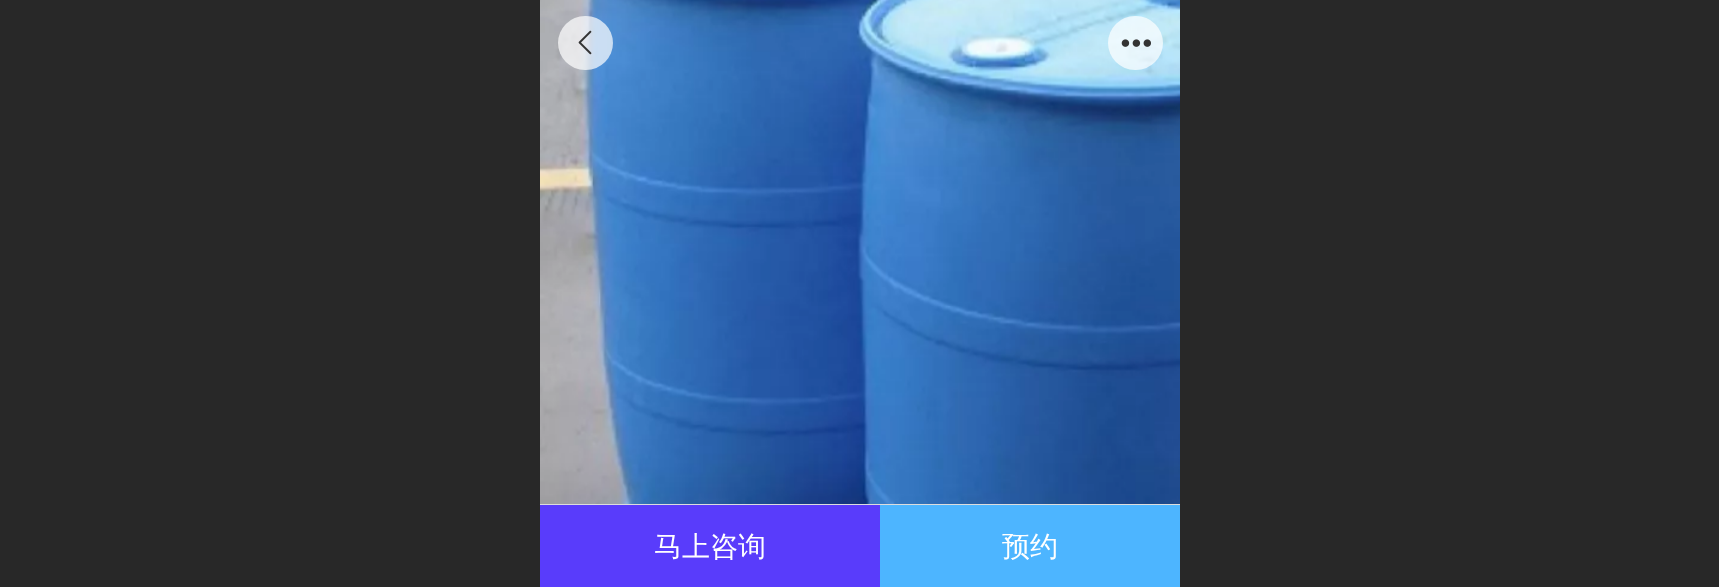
<!DOCTYPE html>
<meta charset="utf-8">
<style>body { margin: 0 } canvas { display: block }</style>
<canvas id="canvas" width="1719" height="587"></canvas>
<script type="module">
  const canvas = document.getElementById("canvas");
  const g = canvas.getContext("2d");
  g.miterLimit = 4;
  g.fontKerning = "normal";
  function drawText(s, x, y, [font, color]) {
    g.font = font;
    g.fillStyle = color;
    g.fillText(s, x, y);
  }
  function fillBox(x, y, w, h, color) {
    g.fillStyle = color;
    g.fillRect(x, y, w, h);
  }
  function fillRounded(x, y, w, h, r, color) {
    g.fillStyle = color;
    g.beginPath();
    g.roundRect(x, y, w, h, r);
    g.fill();
  }
  async function drawPicture(src, x, y, w, h) {
    const img = new Image();
    img.src = src;
    await img.decode();
    g.drawImage(img, x, y, w, h);
  }

  const s1 = ["500 28px WenQuanYi Zen Hei", "#FFFFFF"];

  fillBox(0, 0, 1719, 587, "#FFFFFF");
  fillBox(0, 0, 540, 587, "#282828");
  await drawPicture("pic3.png", 540, 0, 640, 504);
  fillRounded(558, 16, 55, 54, 27, "rgba(255, 255, 255, 0.7)");
  await drawPicture("pic1.png", 578, 30, 14, 25);
  fillRounded(1108, 16, 55, 54, 27, "rgba(255, 255, 255, 0.7)");
  await drawPicture("pic2.png", 1121, 39, 30, 8);
  fillBox(540, 504, 640, 1, "#DDDDDD");
  fillBox(540, 505, 340, 82, "#593CFB");
  drawText("马上咨询", 654, 556, s1);
  fillBox(880, 505, 300, 82, "#4DB5FF");
  drawText("预约", 1002, 556, s1);
  fillBox(1180, 0, 539, 587, "#282828");
</script>
